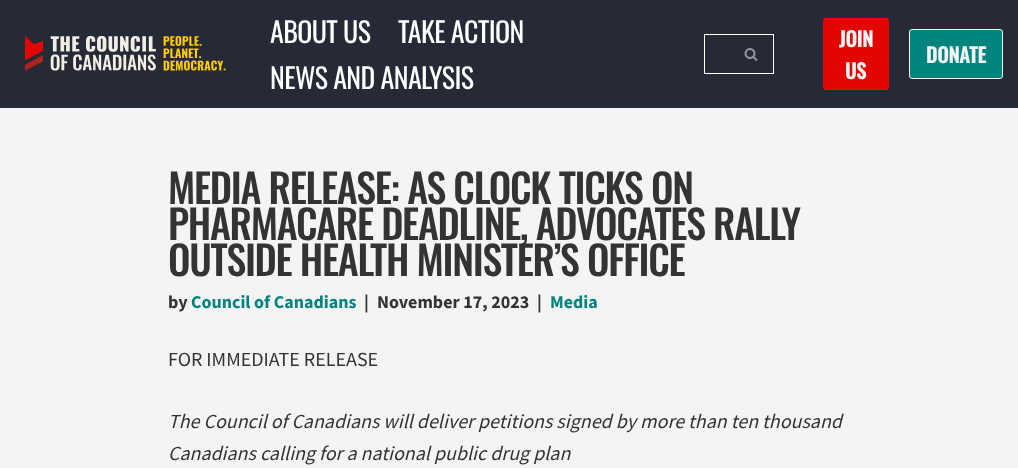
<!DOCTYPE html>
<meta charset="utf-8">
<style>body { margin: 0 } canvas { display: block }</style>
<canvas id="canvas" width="1018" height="468"></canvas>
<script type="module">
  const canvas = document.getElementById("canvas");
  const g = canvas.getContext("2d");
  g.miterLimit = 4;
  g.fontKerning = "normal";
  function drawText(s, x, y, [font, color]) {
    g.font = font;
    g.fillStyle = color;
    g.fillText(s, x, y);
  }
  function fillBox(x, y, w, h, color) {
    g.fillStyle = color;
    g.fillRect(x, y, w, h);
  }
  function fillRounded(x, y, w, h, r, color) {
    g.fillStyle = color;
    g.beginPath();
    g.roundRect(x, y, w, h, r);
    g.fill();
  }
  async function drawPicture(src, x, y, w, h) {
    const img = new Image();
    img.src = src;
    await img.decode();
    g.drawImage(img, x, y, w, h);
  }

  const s1 = ["28px Oswald", "#FFFFFF"];
  const s2 = ["bold 20px Oswald", "#F4F5F7"];
  const s3 = ["500 40px Oswald", "#333333"];
  const s4 = ["bold 18px Source Sans Pro", "#333333"];
  const s5 = ["bold 18px Source Sans Pro", "#00857E"];
  const s6 = ["20px Source Sans Pro", "#333333"];
  const s7 = ["italic 20px Source Sans Pro", "#333333"];

  fillBox(0, 0, 1018, 468, "#F4F4F4");
  fillBox(0, 0, 1018, 108, "#252A36");
  await drawPicture("pic1.png", 25, 36, 201, 35);
  g.letterSpacing = "-0.6px";
  drawText("ABOUT US", 270, 43, s1);
  drawText("TAKE ACTION", 398, 43, s1);
  drawText("NEWS AND ANALYSIS", 270, 89, s1);
  fillBox(704, 34, 70, 1, "#FFFFFF");
  fillBox(704, 73, 25, 1, "#FFFFFF");
  fillBox(704, 34, 1, 40, "#FFFFFF");
  fillBox(773, 34, 1, 40, "#FFFFFF");
  fillBox(729, 73, 45, 1, "#FFFFFF");
  await drawPicture("pic2.png", 744, 48, 14, 13);
  fillRounded(823, 18, 66, 72, 3, "#E10600");
  g.letterSpacing = "0px";
  drawText("JOIN", 839, 47, s2);
  drawText("US", 845, 79, s2);
  g.fillStyle = "#00857E";
  g.beginPath();
  g.roundRect(909.5, 29.5, 93, 49, 2.5);
  g.fill();
  g.strokeStyle = "#F4F4F4";
  g.stroke();
  drawText("DONATE", 926, 63, s2);
  g.letterSpacing = "-1.3px";
  drawText("MEDIA RELEASE: AS CLOCK TICKS ON", 168, 204, s3);
  drawText("PHARMACARE DEADLINE, ADVOCATES RALLY", 168, 240, s3);
  drawText("OUTSIDE HEALTH MINISTER’S OFFICE", 168, 276, s3);
  g.letterSpacing = "0px";
  drawText("by", 168, 308, s4);
  drawText("Council of Canadians", 191, 308, s5);
  drawText("|", 364, 308, s4);
  drawText("November 17, 2023", 377, 308, s4);
  drawText("|", 537, 308, s4);
  drawText("Media", 550, 308, s5);
  drawText("FOR IMMEDIATE RELEASE", 168, 366, s6);
  drawText("The Council of Canadians will deliver petitions signed by more than ten thousand", 168, 428, s7);
  drawText("Canadians calling for a national public drug plan", 168, 460, s7);
</script>
